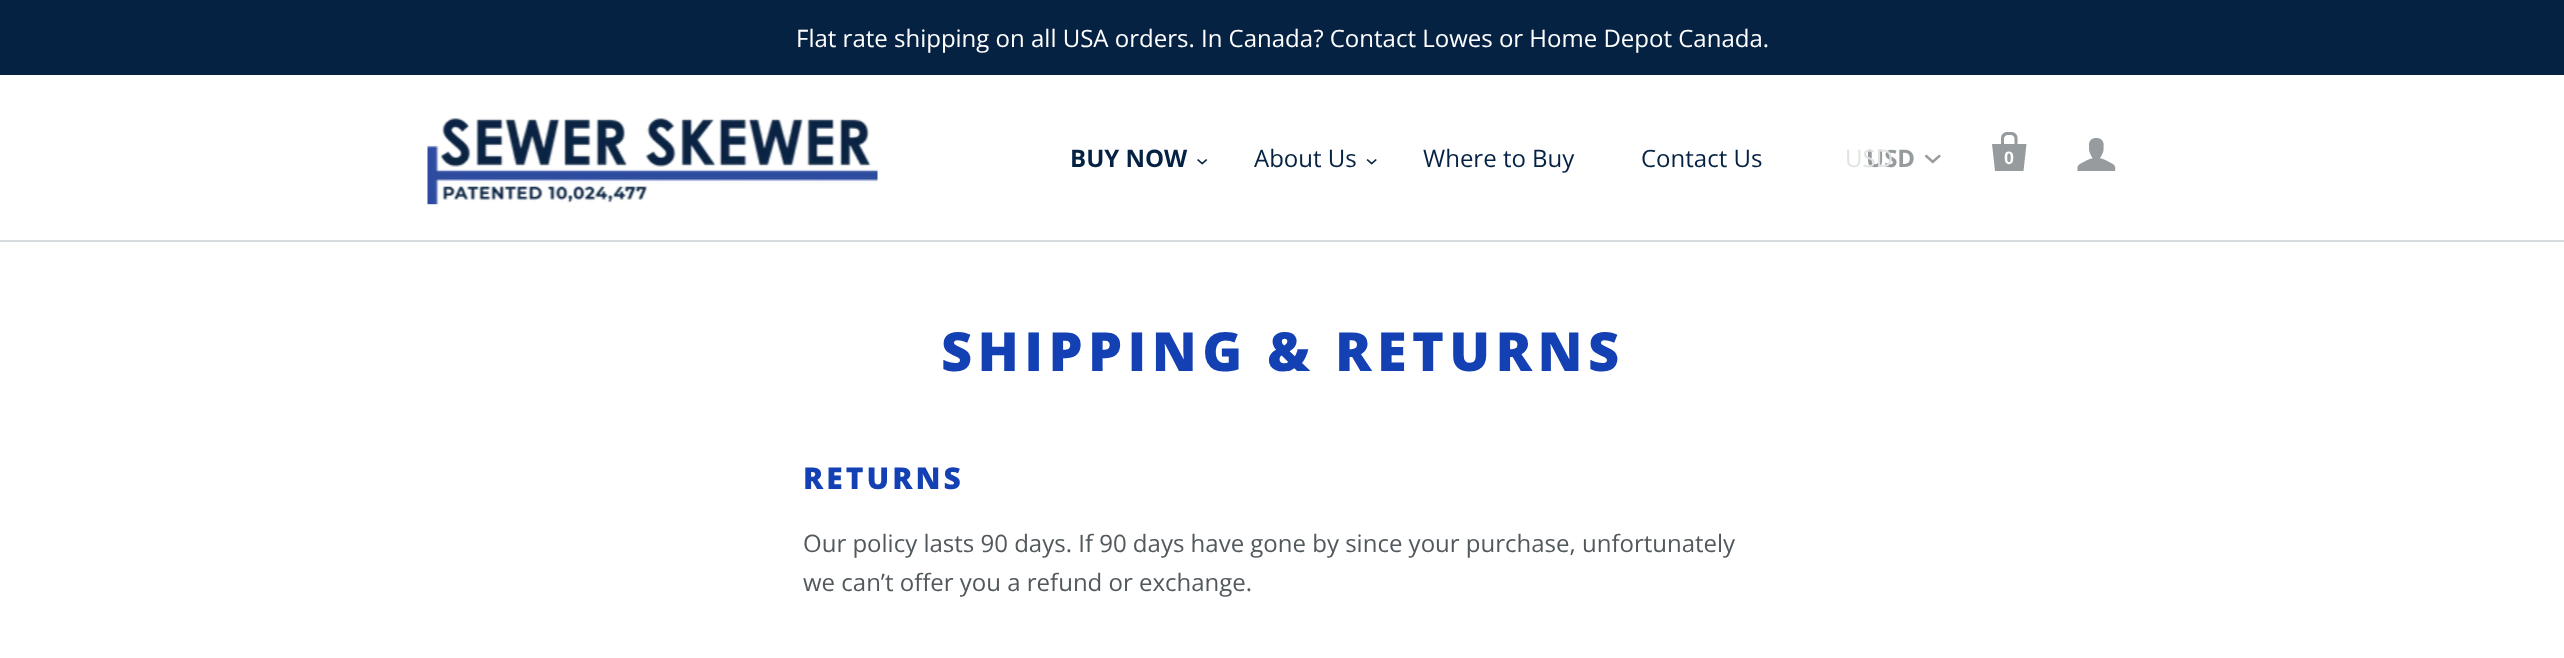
<!DOCTYPE html>
<meta charset="utf-8">
<style>body { margin: 0 } canvas { display: block }</style>
<canvas id="canvas" width="2564" height="658"></canvas>
<script type="module">
  const canvas = document.getElementById("canvas");
  const g = canvas.getContext("2d");
  g.miterLimit = 4;
  g.fontKerning = "normal";
  function drawText(s, x, y, [font, color]) {
    g.font = font;
    g.fillStyle = color;
    g.fillText(s, x, y);
  }
  function fillBox(x, y, w, h, color) {
    g.fillStyle = color;
    g.fillRect(x, y, w, h);
  }
  async function drawPicture(src, x, y, w, h) {
    const img = new Image();
    img.src = src;
    await img.decode();
    g.drawImage(img, x, y, w, h);
  }

  const s1 = ["24px Open Sans", "#FFFFFF"];
  const s2 = ["bold 24px Open Sans", "#052243"];
  const s3 = ["24px Open Sans", "#052243"];
  const s4 = ["bold 24px Open Sans", "#969B9D"];
  const s5 = ["24px Open Sans", "#E2E3E4"];
  const s6 = ["bold 18px Liberation Sans", "#FFFFFF"];
  const s7 = ["800 54px Open Sans", "#1340B3"];
  const s8 = ["800 30px Open Sans", "#1340B3"];
  const s9 = ["24px Open Sans", "#51595D"];

  fillBox(0, 0, 2564, 658, "#FFFFFF");
  fillBox(0, 240, 2564, 2, "#D7DCDE");
  fillBox(0, 0, 2564, 75, "#052243");
  drawText("Flat rate shipping on all USA orders. In Canada? Contact Lowes or Home Depot Canada.", 796, 47, s1);
  await drawPicture("pic1.png", 427, 118, 451, 87);
  drawText("BUY NOW", 1070, 167, s2);
  await drawPicture("pic2.png", 1197, 159, 11, 6);
  drawText("About Us", 1254, 167, s3);
  await drawPicture("pic3.png", 1366, 159, 11, 6);
  drawText("Where to Buy", 1423, 167, s3);
  drawText("Contact Us", 1641, 167, s3);
  drawText("USD", 1866, 167, s4);
  drawText("USD", 1845, 167, s5);
  await drawPicture("pic4.png", 1924, 154, 17, 10);
  await drawPicture("pic5.png", 1992, 132, 35, 39);
  drawText("0", 2004, 164, s6);
  await drawPicture("pic6.png", 2077, 138, 39, 33);
  g.letterSpacing = "5.4px";
  drawText("SHIPPING & RETURNS", 941, 371, s7);
  g.letterSpacing = "3px";
  drawText("RETURNS", 803, 489, s8);
  g.letterSpacing = "0px";
  drawText("Our policy lasts 90 days. If 90 days have gone by since your purchase, unfortunately", 803, 552, s9);
  drawText("we can’t offer you a refund or exchange.", 803, 591, s9);
</script>
